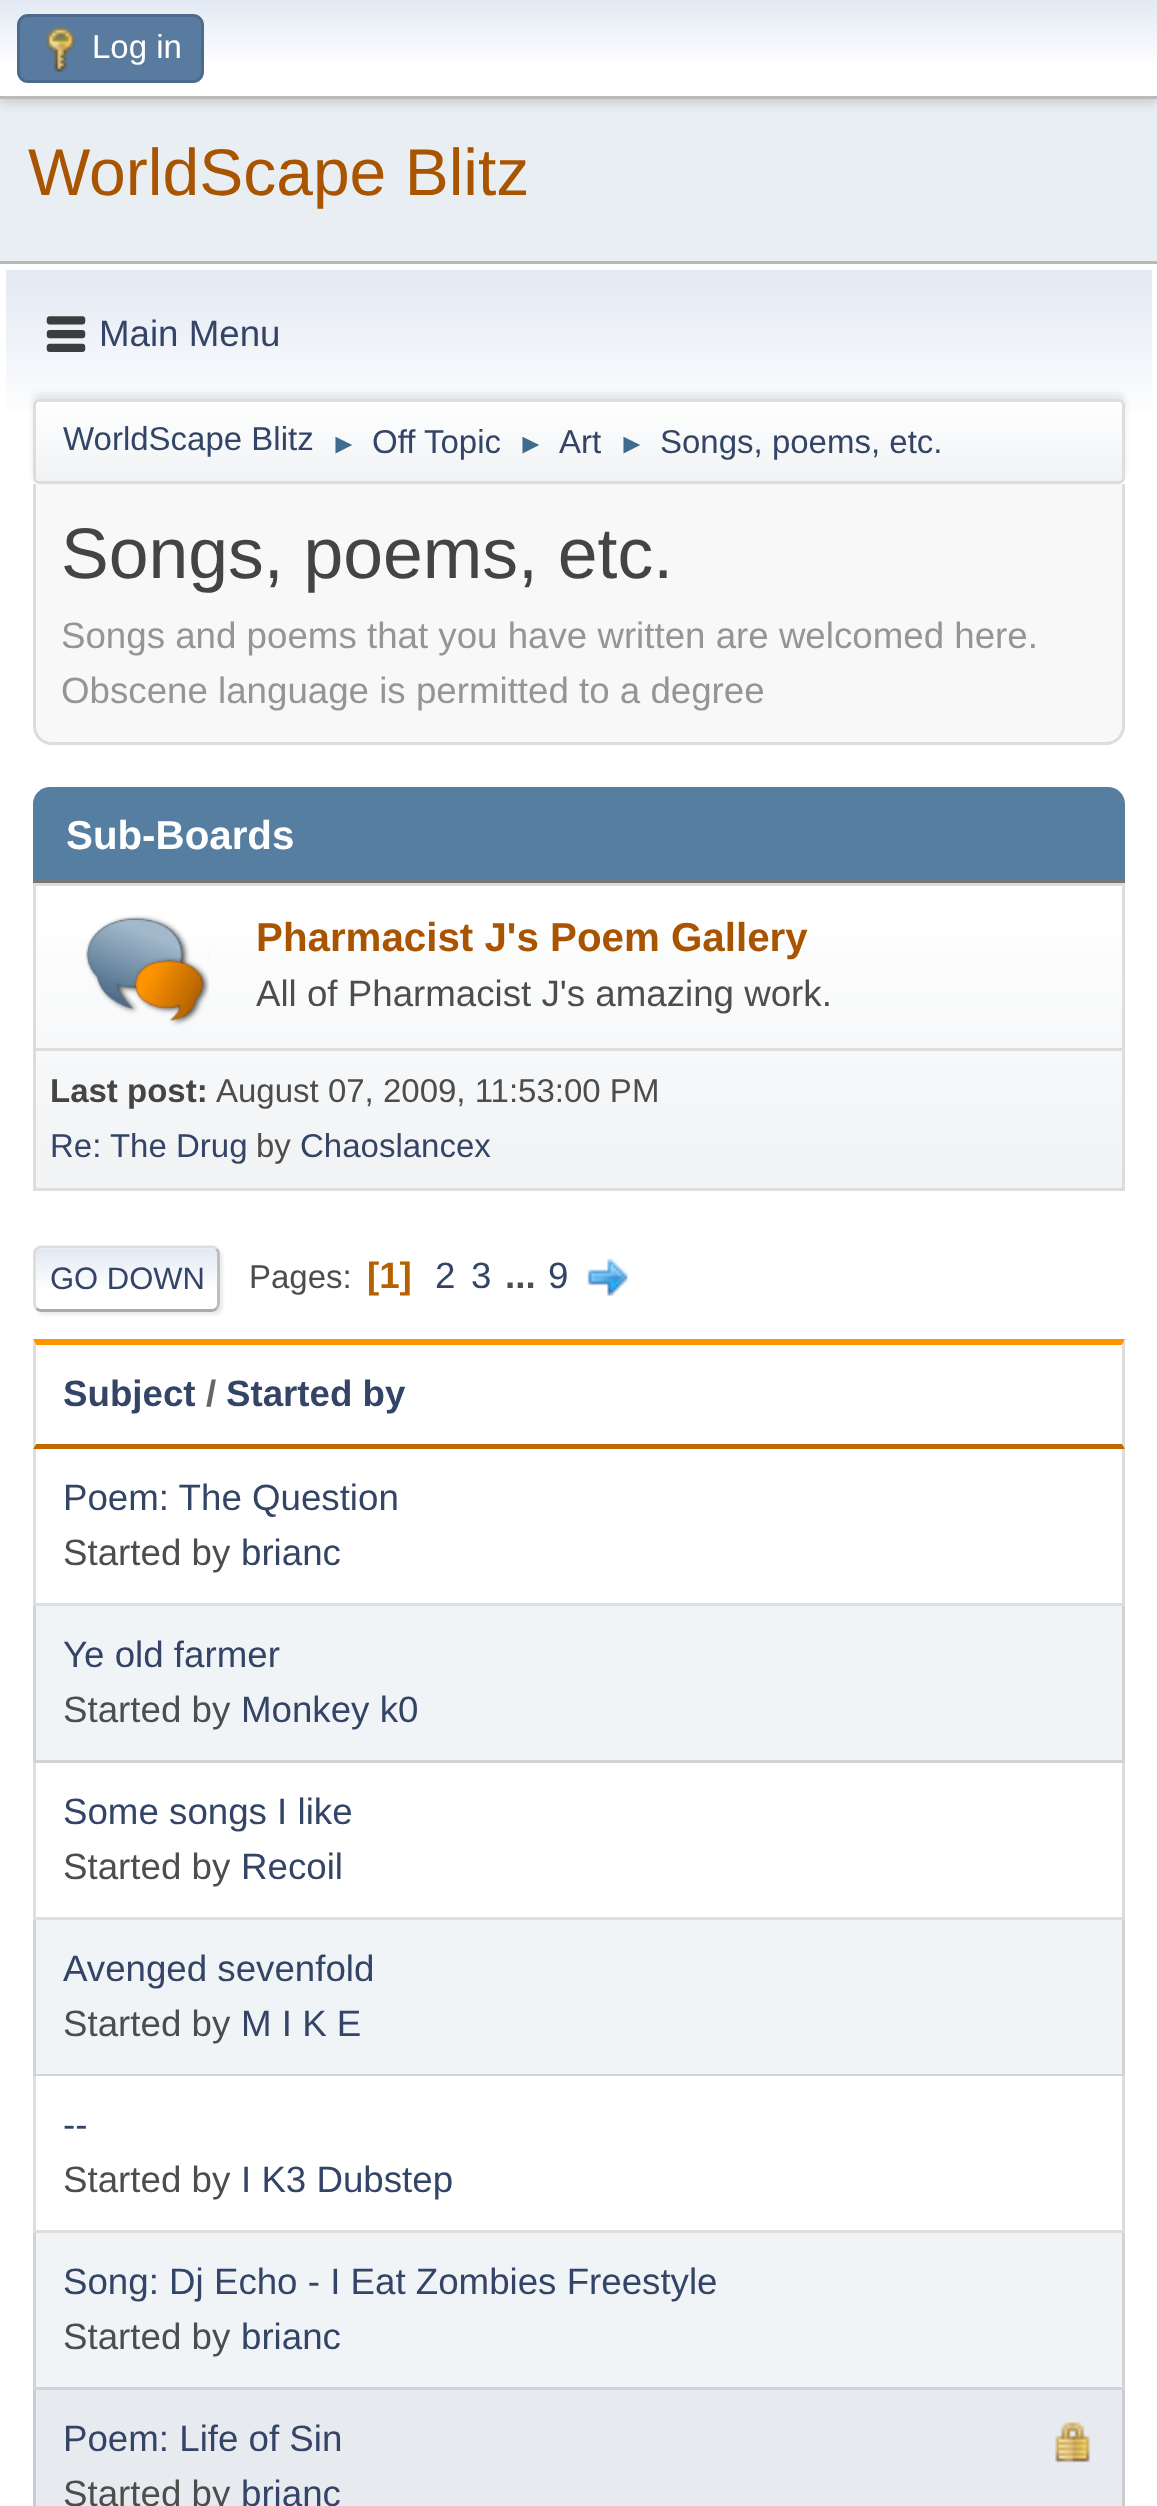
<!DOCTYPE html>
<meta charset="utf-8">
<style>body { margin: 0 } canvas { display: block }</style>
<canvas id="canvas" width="1157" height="2506"></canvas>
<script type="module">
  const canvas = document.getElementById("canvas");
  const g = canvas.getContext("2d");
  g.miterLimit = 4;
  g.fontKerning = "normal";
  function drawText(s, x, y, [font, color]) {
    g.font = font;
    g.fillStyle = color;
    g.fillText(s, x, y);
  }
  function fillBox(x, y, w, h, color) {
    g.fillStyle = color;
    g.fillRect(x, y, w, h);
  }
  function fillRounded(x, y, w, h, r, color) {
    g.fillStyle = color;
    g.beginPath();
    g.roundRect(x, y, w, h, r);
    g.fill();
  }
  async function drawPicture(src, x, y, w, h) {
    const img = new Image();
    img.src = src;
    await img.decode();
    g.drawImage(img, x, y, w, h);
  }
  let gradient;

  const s1 = ["33px Liberation Sans", "#FFFFFF"];
  const s2 = ["66px Liberation Sans", "#A85400"];
  const s3 = ["36.7px Liberation Sans", "#334466"];
  const s4 = ["33px Liberation Sans", "#334466"];
  const s5 = ["28px Liberation Sans", "#3F6B8C"];
  const s6 = ["71.5px Liberation Sans", "#444444"];
  const s7 = ["36.7px Liberation Sans", "#959595"];
  const s8 = ["bold 40.3px Liberation Sans", "#FFFFFF"];
  const s9 = ["bold 40.3px Liberation Sans", "#A85400"];
  const s10 = ["36.7px Liberation Sans", "#4D4D4D"];
  const s11 = ["bold 33px Liberation Sans", "#444444"];
  const s12 = ["33px Liberation Sans", "#4D4D4D"];
  const s13 = ["31px Liberation Sans", "#334466"];
  const s14 = ["bold 36.7px Liberation Sans", "#B46100"];
  const s15 = ["bold 36.7px Liberation Sans", "#4D4D4D"];
  const s16 = ["bold 36.7px Liberation Sans", "#334466"];
  const s17 = ["bold 36.7px Liberation Sans", "#666666"];

  fillBox(0, 0, 1157, 2506, "#E9EEF2");
  g.fillStyle = "rgba(0, 0, 0, 0.16)";
  g.filter = "blur(5.5px)";
  g.beginPath();
  g.rect(0, 3, 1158, 99);
  g.fill();
  g.filter = "none";
  gradient = g.createLinearGradient(579, 0, 579, 96);
  gradient.addColorStop(0, "#E2E9F3");
  gradient.addColorStop(0.7, "#FFFFFF");
  g.fillStyle = gradient;
  g.fillRect(0, 0, 1157, 96);
  fillBox(0, 96, 1157, 3, "#BBBBBB");
  g.fillStyle = "#597B9F";
  g.beginPath();
  g.roundRect(18.5, 15.5, 184, 66, 9.5);
  g.fill();
  g.strokeStyle = "#4A6B8C";
  g.lineWidth = 3;
  g.stroke();
  await drawPicture("pic1.png", 46, 27, 30, 45);
  drawText("Log in", 92, 58, s1);
  drawText("WorldScape Blitz", 28, 195, s2);
  fillBox(0, 264, 1157, 2242, "#FFFFFF");
  fillBox(0, 261, 1157, 3, "#B8B8B8");
  gradient = g.createLinearGradient(579, 269, 579, 490);
  gradient.addColorStop(0, "#E2E9F3");
  gradient.addColorStop(0.7, "#FFFFFF");
  g.fillStyle = gradient;
  g.fillRect(6, 270, 1146, 140);
  await drawPicture("pic2.png", 46, 316, 40, 36);
  drawText("Main Menu", 99, 346, s3);
  g.fillStyle = "rgba(0, 0, 0, 0.08)";
  g.filter = "blur(3px)";
  g.beginPath();
  g.roundRect(33, 393, 1092, 86, 6);
  g.fill();
  g.filter = "none";
  g.save();
  g.beginPath();
  g.roundRect(33, 399, 1092, 85, 6);
  g.clip();
  gradient = g.createLinearGradient(579, 401, 579, 481);
  gradient.addColorStop(0, "#FFFFFF");
  gradient.addColorStop(0.95, "#F1F3F5");
  g.fillStyle = gradient;
  g.fillRect(33, 402, 1092, 79);
  g.restore();
  g.beginPath();
  g.roundRect(34.5, 400.5, 1089, 82, 4.5);
  g.strokeStyle = "#DDDDDD";
  g.stroke();
  drawText("WorldScape Blitz", 63, 450, s4);
  drawText("►", 330, 453, s5);
  drawText("Off Topic", 372, 453, s4);
  drawText("►", 517, 453, s5);
  drawText("Art", 559, 453, s4);
  drawText("►", 618, 453, s5);
  drawText("Songs, poems, etc.", 660, 453, s4);
  g.fillStyle = "#F8F8F8";
  g.beginPath();
  g.roundRect(33, 484, 1092, 261, [0, 0, 19, 19]);
  g.fill();
  g.fillStyle = "#DDDDDD";
  g.beginPath();
  g.moveTo(33, 484);
  g.lineTo(1125, 484);
  g.lineTo(1125, 726);
  g.bezierCurveTo(1125, 737, 1116, 745, 1106, 745);
  g.lineTo(52, 745);
  g.bezierCurveTo(42, 745, 33, 737, 33, 726);
  g.closePath();
  g.moveTo(36, 484);
  g.lineTo(1122, 484);
  g.lineTo(1122, 726);
  g.bezierCurveTo(1122, 735, 1115, 742, 1106, 742);
  g.lineTo(52, 742);
  g.bezierCurveTo(43, 742, 36, 735, 36, 726);
  g.closePath();
  g.fill("evenodd");
  drawText("Songs, poems, etc.", 61, 578, s6);
  drawText("Songs and poems that you have written are welcomed here.", 61, 648, s7);
  drawText("Obscene language is permitted to a degree", 61, 703, s7);
  g.fillStyle = "#557EA0";
  g.beginPath();
  g.roundRect(33, 787, 1092, 96, [17, 17, 0, 0]);
  g.fill();
  fillBox(33, 880, 1092, 3, "#777777");
  drawText("Sub-Boards", 66, 849, s8);
  gradient = g.createLinearGradient(579, 886, 579, 1188);
  gradient.addColorStop(0, "#FFFFFF");
  gradient.addColorStop(0.95, "#F1F3F5");
  g.fillStyle = gradient;
  g.fillRect(36, 937, 1086, 251);
  g.strokeRect(34.5, 884.5, 1089, 305);
  await drawPicture("pic3.png", 85, 915, 124, 111);
  drawText("Pharmacist J's Poem Gallery", 256, 951, s9);
  drawText("All of Pharmacist J's amazing work.", 256, 1006, s10);
  fillBox(36, 1048, 1086, 3, "#DDDDDD");
  drawText("Last post:", 50, 1102, s11);
  drawText("August 07, 2009, 11:53:00 PM", 216, 1102, s12);
  drawText("Re: The Drug", 50, 1157, s4);
  drawText("by", 256, 1157, s12);
  drawText("Chaoslancex", 300, 1157, s4);
  g.fillStyle = "rgba(221, 221, 221, 0.57)";
  g.filter = "blur(1.5px)";
  g.beginPath();
  g.roundRect(36, 1249, 187, 66, 8);
  g.fill();
  g.filter = "none";
  fillRounded(33, 1246, 187, 66, 8, "#FFFFFF");
  g.save();
  g.beginPath();
  g.roundRect(33, 1246, 187, 66, 8);
  g.clip();
  gradient = g.createLinearGradient(127, 1249, 127, 1309);
  gradient.addColorStop(0, "#E2E9F3");
  gradient.addColorStop(0.7, "#FFFFFF");
  g.fillStyle = gradient;
  g.fillRect(33, 1249, 187, 60);
  gradient = g.createLinearGradient(127, 1309, 127, 1370);
  gradient.addColorStop(0, "#E2E9F3");
  gradient.addColorStop(0.7, "#FFFFFF");
  g.fillStyle = gradient;
  g.fillRect(33, 1309, 187, 3);
  g.restore();
  g.beginPath();
  g.moveTo(216.5, 1249);
  g.bezierCurveTo(218, 1250.5, 218.5, 1252, 218.5, 1254);
  g.lineTo(218.5, 1303.5);
  g.bezierCurveTo(218.5, 1305.5, 218, 1307, 216.5, 1308.5);
  g.strokeStyle = "#BBBBBB";
  g.lineWidth = 2.8;
  g.stroke();
  g.beginPath();
  g.moveTo(216.5, 1308.5);
  g.bezierCurveTo(215.5, 1309.5, 213.5, 1310.5, 212, 1310.5);
  g.lineTo(41, 1310.5);
  g.bezierCurveTo(39.5, 1310.5, 37.5, 1309.5, 36.5, 1308.5);
  g.strokeStyle = "#AAAAAA";
  g.stroke();
  g.beginPath();
  g.moveTo(36.5, 1308.5);
  g.bezierCurveTo(35, 1307, 34.5, 1305.5, 34.5, 1303.5);
  g.lineTo(34.5, 1254);
  g.bezierCurveTo(34.5, 1252, 35, 1250.5, 36.5, 1249);
  g.bezierCurveTo(37.5, 1248, 39.5, 1247, 41, 1247);
  g.lineTo(212, 1247);
  g.bezierCurveTo(213.5, 1247, 215.5, 1248, 216.5, 1249);
  g.strokeStyle = "#DDDDDD";
  g.stroke();
  drawText("GO DOWN", 50, 1289, s13);
  drawText("Pages:", 249, 1288, s12);
  drawText("[1]", 367, 1288, s14);
  drawText("2", 435, 1288, s3);
  drawText("3", 471, 1288, s3);
  drawText("...", 505, 1288, s15);
  drawText("9", 548, 1288, s3);
  await drawPicture("pic4.png", 587, 1258, 41, 39);
  g.fillStyle = "#FF9400";
  g.beginPath();
  g.moveTo(33, 1339);
  g.lineTo(1125, 1339);
  g.lineTo(1122, 1345);
  g.lineTo(36, 1345);
  g.closePath();
  g.fill();
  g.fillStyle = "#DDDDDD";
  g.beginPath();
  g.moveTo(1125, 1339);
  g.lineTo(1125, 1449);
  g.lineTo(1122, 1444);
  g.lineTo(1122, 1345);
  g.closePath();
  g.fill();
  g.fillStyle = "#BF6900";
  g.beginPath();
  g.moveTo(1125, 1449);
  g.lineTo(33, 1449);
  g.lineTo(36, 1444);
  g.lineTo(1122, 1444);
  g.closePath();
  g.fill();
  g.fillStyle = "#DDDDDD";
  g.beginPath();
  g.moveTo(33, 1449);
  g.lineTo(33, 1339);
  g.lineTo(36, 1345);
  g.lineTo(36, 1444);
  g.closePath();
  g.fill();
  drawText("Subject", 63, 1406, s16);
  drawText("/", 206, 1406, s17);
  drawText("Started by", 226, 1406, s16);
  g.fillStyle = "#DCDCDC";
  g.beginPath();
  g.moveTo(1125, 1449);
  g.lineTo(1125, 1606);
  g.lineTo(1122, 1603);
  g.lineTo(1122, 1449);
  g.closePath();
  g.fill();
  g.fillStyle = "rgba(0, 0, 0, 0.13)";
  g.beginPath();
  g.moveTo(1125, 1606);
  g.lineTo(33, 1606);
  g.lineTo(36, 1603);
  g.lineTo(1122, 1603);
  g.closePath();
  g.fill();
  g.beginPath();
  g.moveTo(33, 1606);
  g.lineTo(33, 1449);
  g.lineTo(36, 1449);
  g.lineTo(36, 1603);
  g.closePath();
  g.fill();
  drawText("Poem: The Question", 63, 1510, s3);
  drawText("Started by", 63, 1565, s10);
  drawText("brianc", 241, 1565, s3);
  fillBox(33, 1606, 1092, 157, "#F0F4F7");
  g.fillStyle = "#D1D4D7";
  g.beginPath();
  g.moveTo(1125, 1606);
  g.lineTo(1125, 1763);
  g.lineTo(1122, 1760);
  g.lineTo(1122, 1606);
  g.closePath();
  g.fill();
  g.fillStyle = "rgba(0, 0, 0, 0.13)";
  g.beginPath();
  g.moveTo(1125, 1763);
  g.lineTo(33, 1763);
  g.lineTo(36, 1760);
  g.lineTo(1122, 1760);
  g.closePath();
  g.fill();
  g.beginPath();
  g.moveTo(33, 1763);
  g.lineTo(33, 1606);
  g.lineTo(36, 1606);
  g.lineTo(36, 1760);
  g.closePath();
  g.fill();
  drawText("Ye old farmer", 63, 1667, s3);
  drawText("Started by", 63, 1722, s10);
  drawText("Monkey k0", 241, 1722, s3);
  g.fillStyle = "#DCDCDC";
  g.beginPath();
  g.moveTo(1125, 1763);
  g.lineTo(1125, 1920);
  g.lineTo(1122, 1917);
  g.lineTo(1122, 1763);
  g.closePath();
  g.fill();
  g.fillStyle = "rgba(0, 0, 0, 0.13)";
  g.beginPath();
  g.moveTo(1125, 1920);
  g.lineTo(33, 1920);
  g.lineTo(36, 1917);
  g.lineTo(1122, 1917);
  g.closePath();
  g.fill();
  g.beginPath();
  g.moveTo(33, 1920);
  g.lineTo(33, 1763);
  g.lineTo(36, 1763);
  g.lineTo(36, 1917);
  g.closePath();
  g.fill();
  drawText("Some songs I like", 63, 1824, s3);
  drawText("Started by", 63, 1879, s10);
  drawText("Recoil", 241, 1879, s3);
  fillBox(33, 1920, 1092, 156, "#F0F4F7");
  g.fillStyle = "#D1D4D7";
  g.beginPath();
  g.moveTo(1125, 1920);
  g.lineTo(1125, 2076);
  g.lineTo(1122, 2074);
  g.lineTo(1122, 1920);
  g.closePath();
  g.fill();
  g.fillStyle = "rgba(0, 0, 0, 0.13)";
  g.beginPath();
  g.moveTo(1125, 2076);
  g.lineTo(33, 2076);
  g.lineTo(36, 2074);
  g.lineTo(1122, 2074);
  g.closePath();
  g.fill();
  g.beginPath();
  g.moveTo(33, 2076);
  g.lineTo(33, 1920);
  g.lineTo(36, 1920);
  g.lineTo(36, 2074);
  g.closePath();
  g.fill();
  drawText("Avenged sevenfold", 63, 1981, s3);
  drawText("Started by", 63, 2036, s10);
  drawText("M I K E", 241, 2036, s3);
  g.fillStyle = "#DCDCDC";
  g.beginPath();
  g.moveTo(1125, 2076);
  g.lineTo(1125, 2233);
  g.lineTo(1122, 2230);
  g.lineTo(1122, 2076);
  g.closePath();
  g.fill();
  g.fillStyle = "rgba(0, 0, 0, 0.13)";
  g.beginPath();
  g.moveTo(1125, 2233);
  g.lineTo(33, 2233);
  g.lineTo(36, 2230);
  g.lineTo(1122, 2230);
  g.closePath();
  g.fill();
  g.beginPath();
  g.moveTo(33, 2233);
  g.lineTo(33, 2076);
  g.lineTo(36, 2076);
  g.lineTo(36, 2230);
  g.closePath();
  g.fill();
  drawText("--", 63, 2137, s3);
  drawText("Started by", 63, 2192, s10);
  drawText("I K3 Dubstep", 241, 2192, s3);
  fillBox(33, 2233, 1092, 157, "#F0F4F7");
  g.fillStyle = "#D1D4D7";
  g.beginPath();
  g.moveTo(1125, 2233);
  g.lineTo(1125, 2390);
  g.lineTo(1122, 2387);
  g.lineTo(1122, 2233);
  g.closePath();
  g.fill();
  g.fillStyle = "rgba(0, 0, 0, 0.13)";
  g.beginPath();
  g.moveTo(1125, 2390);
  g.lineTo(33, 2390);
  g.lineTo(36, 2387);
  g.lineTo(1122, 2387);
  g.closePath();
  g.fill();
  g.beginPath();
  g.moveTo(33, 2390);
  g.lineTo(33, 2233);
  g.lineTo(36, 2233);
  g.lineTo(36, 2387);
  g.closePath();
  g.fill();
  drawText("Song: Dj Echo - I Eat Zombies Freestyle", 63, 2294, s3);
  drawText("Started by", 63, 2349, s10);
  drawText("brianc", 241, 2349, s3);
  fillBox(36, 2390, 1086, 116, "#E7EAEF");
  g.fillStyle = "#C9CCD0";
  g.beginPath();
  g.moveTo(1125, 2390);
  g.lineTo(1125, 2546);
  g.lineTo(1122, 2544);
  g.lineTo(1122, 2390);
  g.closePath();
  g.fill();
  g.beginPath();
  g.moveTo(33, 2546);
  g.lineTo(33, 2390);
  g.lineTo(36, 2390);
  g.lineTo(36, 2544);
  g.closePath();
  g.fill();
  drawText("Poem: Life of Sin", 63, 2451, s3);
  await drawPicture("pic5.png", 1055, 2422, 35, 41);
  drawText("Started by", 63, 2506, s10);
  drawText("brianc", 241, 2506, s3);
</script>
